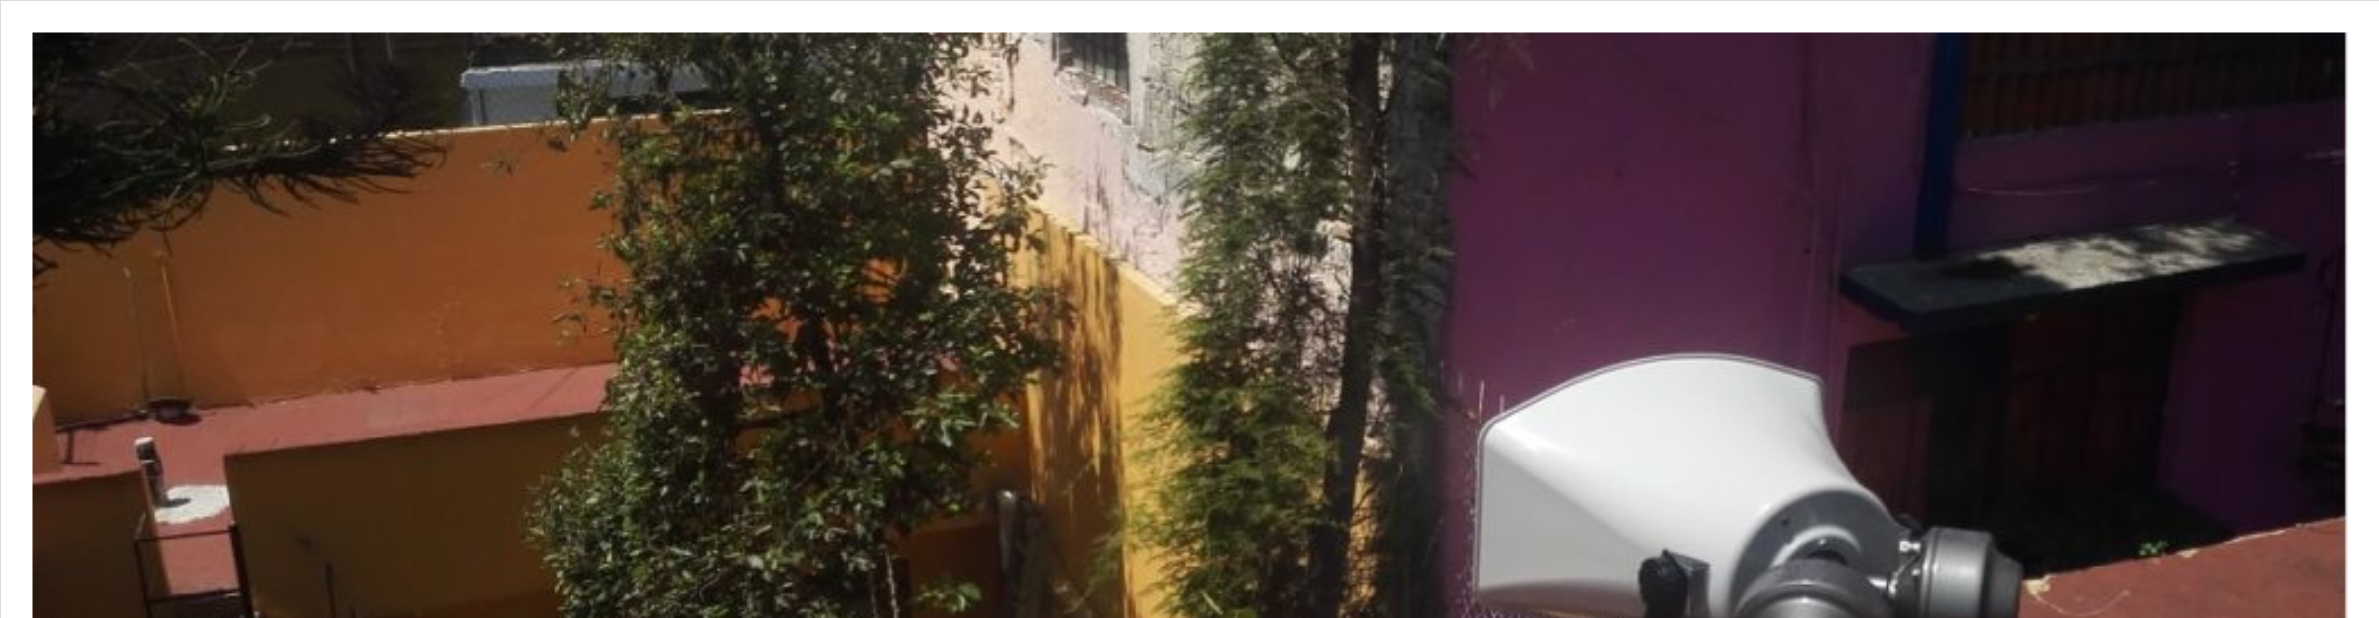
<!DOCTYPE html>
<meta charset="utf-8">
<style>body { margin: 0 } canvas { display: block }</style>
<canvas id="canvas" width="2379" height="618"></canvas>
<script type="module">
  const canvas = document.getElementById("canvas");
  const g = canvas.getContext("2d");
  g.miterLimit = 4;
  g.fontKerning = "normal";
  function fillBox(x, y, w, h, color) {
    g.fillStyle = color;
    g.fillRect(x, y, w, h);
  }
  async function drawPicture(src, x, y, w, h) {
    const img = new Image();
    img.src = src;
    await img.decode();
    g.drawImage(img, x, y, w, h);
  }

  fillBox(0, 0, 2379, 618, "#FFFFFF");
  g.strokeStyle = "#DCDCDE";
  g.strokeRect(0.5, 0.5, 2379, 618);
  await drawPicture("pic1.png", 32, 32, 2316, 586);
</script>
